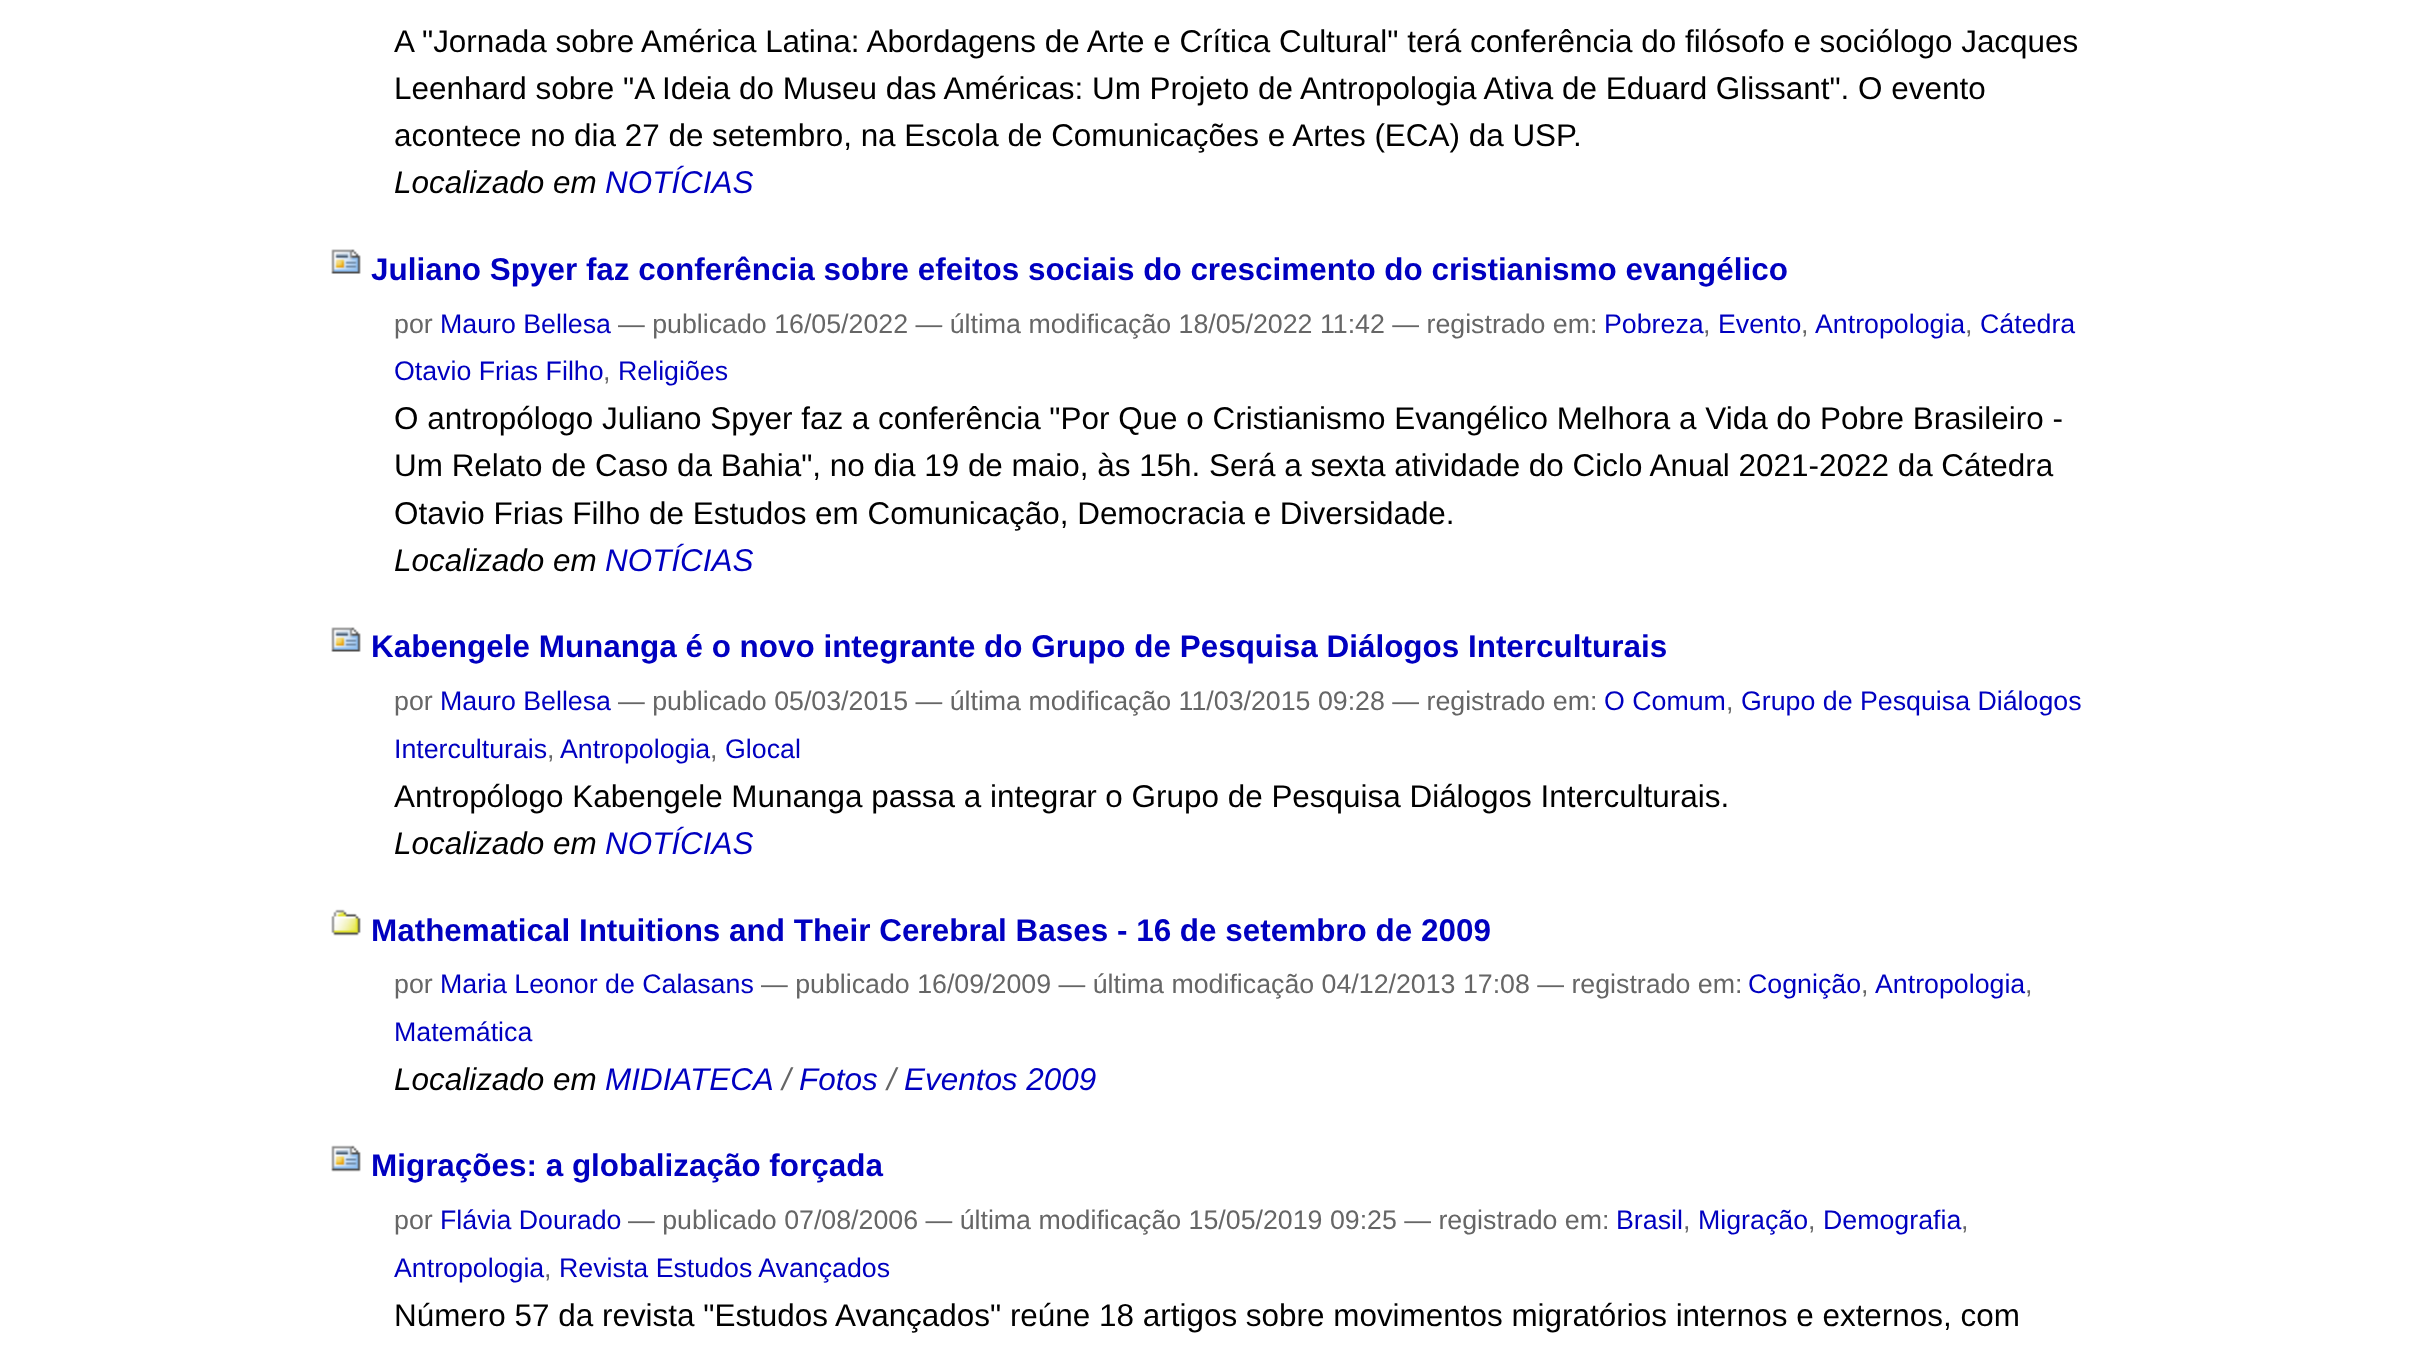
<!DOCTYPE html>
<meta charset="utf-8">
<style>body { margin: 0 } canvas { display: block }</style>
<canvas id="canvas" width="2418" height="1356"></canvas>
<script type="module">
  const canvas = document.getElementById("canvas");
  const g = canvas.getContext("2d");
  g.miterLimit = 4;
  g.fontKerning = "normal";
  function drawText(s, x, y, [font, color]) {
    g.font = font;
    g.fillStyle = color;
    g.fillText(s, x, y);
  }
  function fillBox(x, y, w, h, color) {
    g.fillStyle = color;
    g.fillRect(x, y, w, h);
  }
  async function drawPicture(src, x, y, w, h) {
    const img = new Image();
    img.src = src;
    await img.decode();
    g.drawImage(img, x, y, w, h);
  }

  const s1 = ["31.45px Liberation Sans", "#000000"];
  const s2 = ["italic 31.45px Liberation Sans", "#000000"];
  const s3 = ["italic 31.45px Liberation Sans", "#0000C0"];
  const s4 = ["bold 31.45px Liberation Sans", "#0000C0"];
  const s5 = ["26.75px Liberation Sans", "#666666"];
  const s6 = ["26.75px Liberation Sans", "#0000C0"];
  const s7 = ["italic 31.45px Liberation Sans", "#666666"];

  fillBox(0, 0, 2418, 1356, "#FFFFFF");
  drawText("A \"Jornada sobre América Latina: Abordagens de Arte e Crítica Cultural\" terá conferência do filósofo e sociólogo Jacques", 394, 52, s1);
  drawText("Leenhard sobre \"A Ideia do Museu das Américas: Um Projeto de Antropologia Ativa de Eduard Glissant\". O evento", 394, 99, s1);
  drawText("acontece no dia 27 de setembro, na Escola de Comunicações e Artes (ECA) da USP.", 394, 146, s1);
  drawText("Localizado em", 394, 193, s2);
  drawText("NOTÍCIAS", 605, 193, s3);
  await drawPicture("pic1.png", 331, 249, 30, 25);
  drawText("Juliano Spyer faz conferência sobre efeitos sociais do crescimento do cristianismo evangélico", 371, 280, s4);
  drawText("por", 394, 333, s5);
  drawText("Mauro Bellesa", 440, 333, s6);
  drawText("— publicado 16/05/2022 — última modificação 18/05/2022 11:42 — registrado em:", 618, 333, s5);
  drawText("Pobreza", 1604, 333, s6);
  drawText(",", 1703, 333, s5);
  drawText("Evento", 1718, 333, s6);
  drawText(",", 1801, 333, s5);
  drawText("Antropologia", 1815, 333, s6);
  drawText(",", 1965, 333, s5);
  drawText("Cátedra", 1980, 333, s6);
  drawText("Otavio Frias Filho", 394, 380, s6);
  drawText(",", 603, 380, s5);
  drawText("Religiões", 618, 380, s6);
  drawText("O antropólogo Juliano Spyer faz a conferência \"Por Que o Cristianismo Evangélico Melhora a Vida do Pobre Brasileiro -", 394, 429, s1);
  drawText("Um Relato de Caso da Bahia\", no dia 19 de maio, às 15h. Será a sexta atividade do Ciclo Anual 2021-2022 da Cátedra", 394, 476, s1);
  drawText("Otavio Frias Filho de Estudos em Comunicação, Democracia e Diversidade.", 394, 524, s1);
  drawText("Localizado em", 394, 571, s2);
  drawText("NOTÍCIAS", 605, 571, s3);
  await drawPicture("pic1.png", 331, 627, 30, 25);
  drawText("Kabengele Munanga é o novo integrante do Grupo de Pesquisa Diálogos Interculturais", 371, 657, s4);
  drawText("por", 394, 710, s5);
  drawText("Mauro Bellesa", 440, 710, s6);
  drawText("— publicado 05/03/2015 — última modificação 11/03/2015 09:28 — registrado em:", 618, 710, s5);
  drawText("O Comum", 1604, 710, s6);
  drawText(",", 1726, 710, s5);
  drawText("Grupo de Pesquisa Diálogos", 1741, 710, s6);
  drawText("Interculturais", 394, 758, s6);
  drawText(",", 547, 758, s5);
  drawText("Antropologia", 560, 758, s6);
  drawText(",", 710, 758, s5);
  drawText("Glocal", 725, 758, s6);
  drawText("Antropólogo Kabengele Munanga passa a integrar o Grupo de Pesquisa Diálogos Interculturais.", 394, 807, s1);
  drawText("Localizado em", 394, 854, s2);
  drawText("NOTÍCIAS", 605, 854, s3);
  await drawPicture("pic2.png", 331, 909, 30, 27);
  drawText("Mathematical Intuitions and Their Cerebral Bases - 16 de setembro de 2009", 371, 941, s4);
  drawText("por", 394, 993, s5);
  drawText("Maria Leonor de Calasans", 440, 993, s6);
  drawText("— publicado 16/09/2009 — última modificação 04/12/2013 17:08 — registrado em:", 761, 993, s5);
  drawText("Cognição", 1748, 993, s6);
  drawText(",", 1861, 993, s5);
  drawText("Antropologia", 1875, 993, s6);
  drawText(",", 2025, 993, s5);
  drawText("Matemática", 394, 1041, s6);
  drawText("Localizado em", 394, 1090, s2);
  drawText("MIDIATECA", 605, 1090, s3);
  drawText("/", 782, 1090, s7);
  drawText("Fotos", 799, 1090, s3);
  drawText("/", 887, 1090, s7);
  drawText("Eventos 2009", 904, 1090, s3);
  await drawPicture("pic3.png", 331, 1145, 30, 27);
  drawText("Migrações: a globalização forçada", 371, 1176, s4);
  drawText("por", 394, 1229, s5);
  drawText("Flávia Dourado", 440, 1229, s6);
  drawText("— publicado 07/08/2006 — última modificação 15/05/2019 09:25 — registrado em:", 628, 1229, s5);
  drawText("Brasil", 1616, 1229, s6);
  drawText(",", 1683, 1229, s5);
  drawText("Migração", 1698, 1229, s6);
  drawText(",", 1808, 1229, s5);
  drawText("Demografia", 1823, 1229, s6);
  drawText(",", 1961, 1229, s5);
  drawText("Antropologia", 394, 1277, s6);
  drawText(",", 544, 1277, s5);
  drawText("Revista Estudos Avançados", 559, 1277, s6);
  drawText("Número 57 da revista \"Estudos Avançados\" reúne 18 artigos sobre movimentos migratórios internos e externos, com", 394, 1326, s1);
</script>
